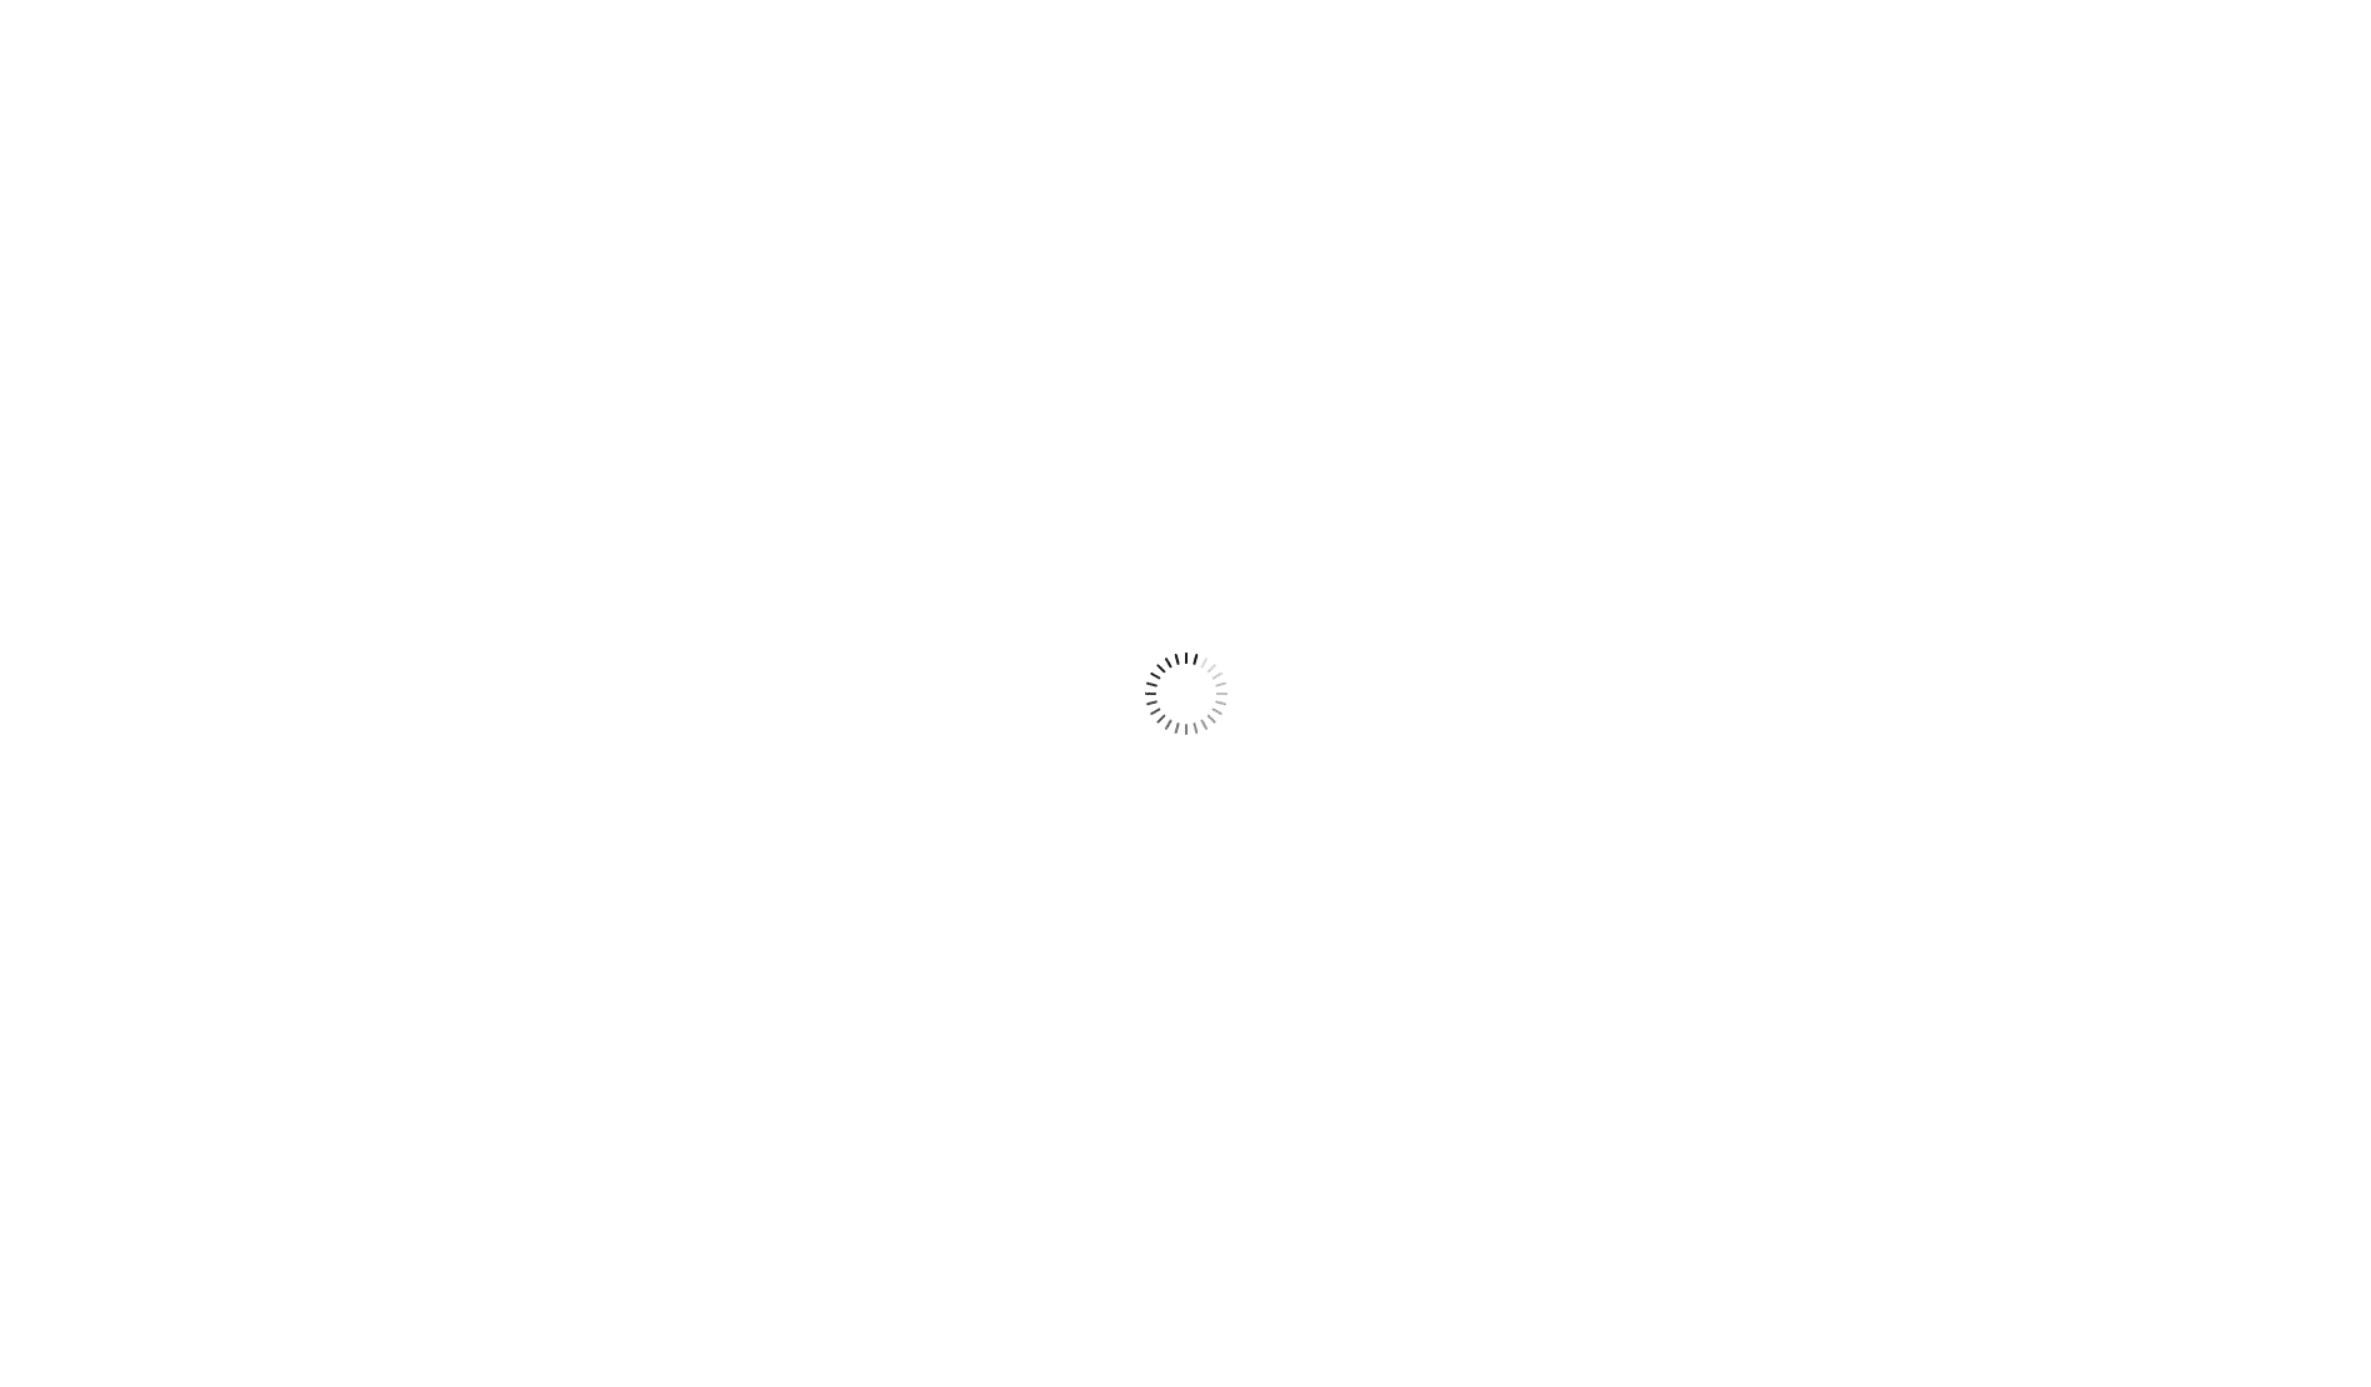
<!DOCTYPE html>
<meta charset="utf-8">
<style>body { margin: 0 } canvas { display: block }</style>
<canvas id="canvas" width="2371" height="1387"></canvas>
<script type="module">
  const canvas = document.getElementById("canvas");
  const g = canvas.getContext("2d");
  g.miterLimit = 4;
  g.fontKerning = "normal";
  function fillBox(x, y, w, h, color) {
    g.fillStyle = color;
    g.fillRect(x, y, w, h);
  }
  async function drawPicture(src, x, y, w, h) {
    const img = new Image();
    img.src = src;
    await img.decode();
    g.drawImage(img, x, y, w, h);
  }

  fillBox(0, 0, 2371, 1387, "#FFFFFF");
  await drawPicture("pic1.png", 1145, 652, 83, 83);
</script>
